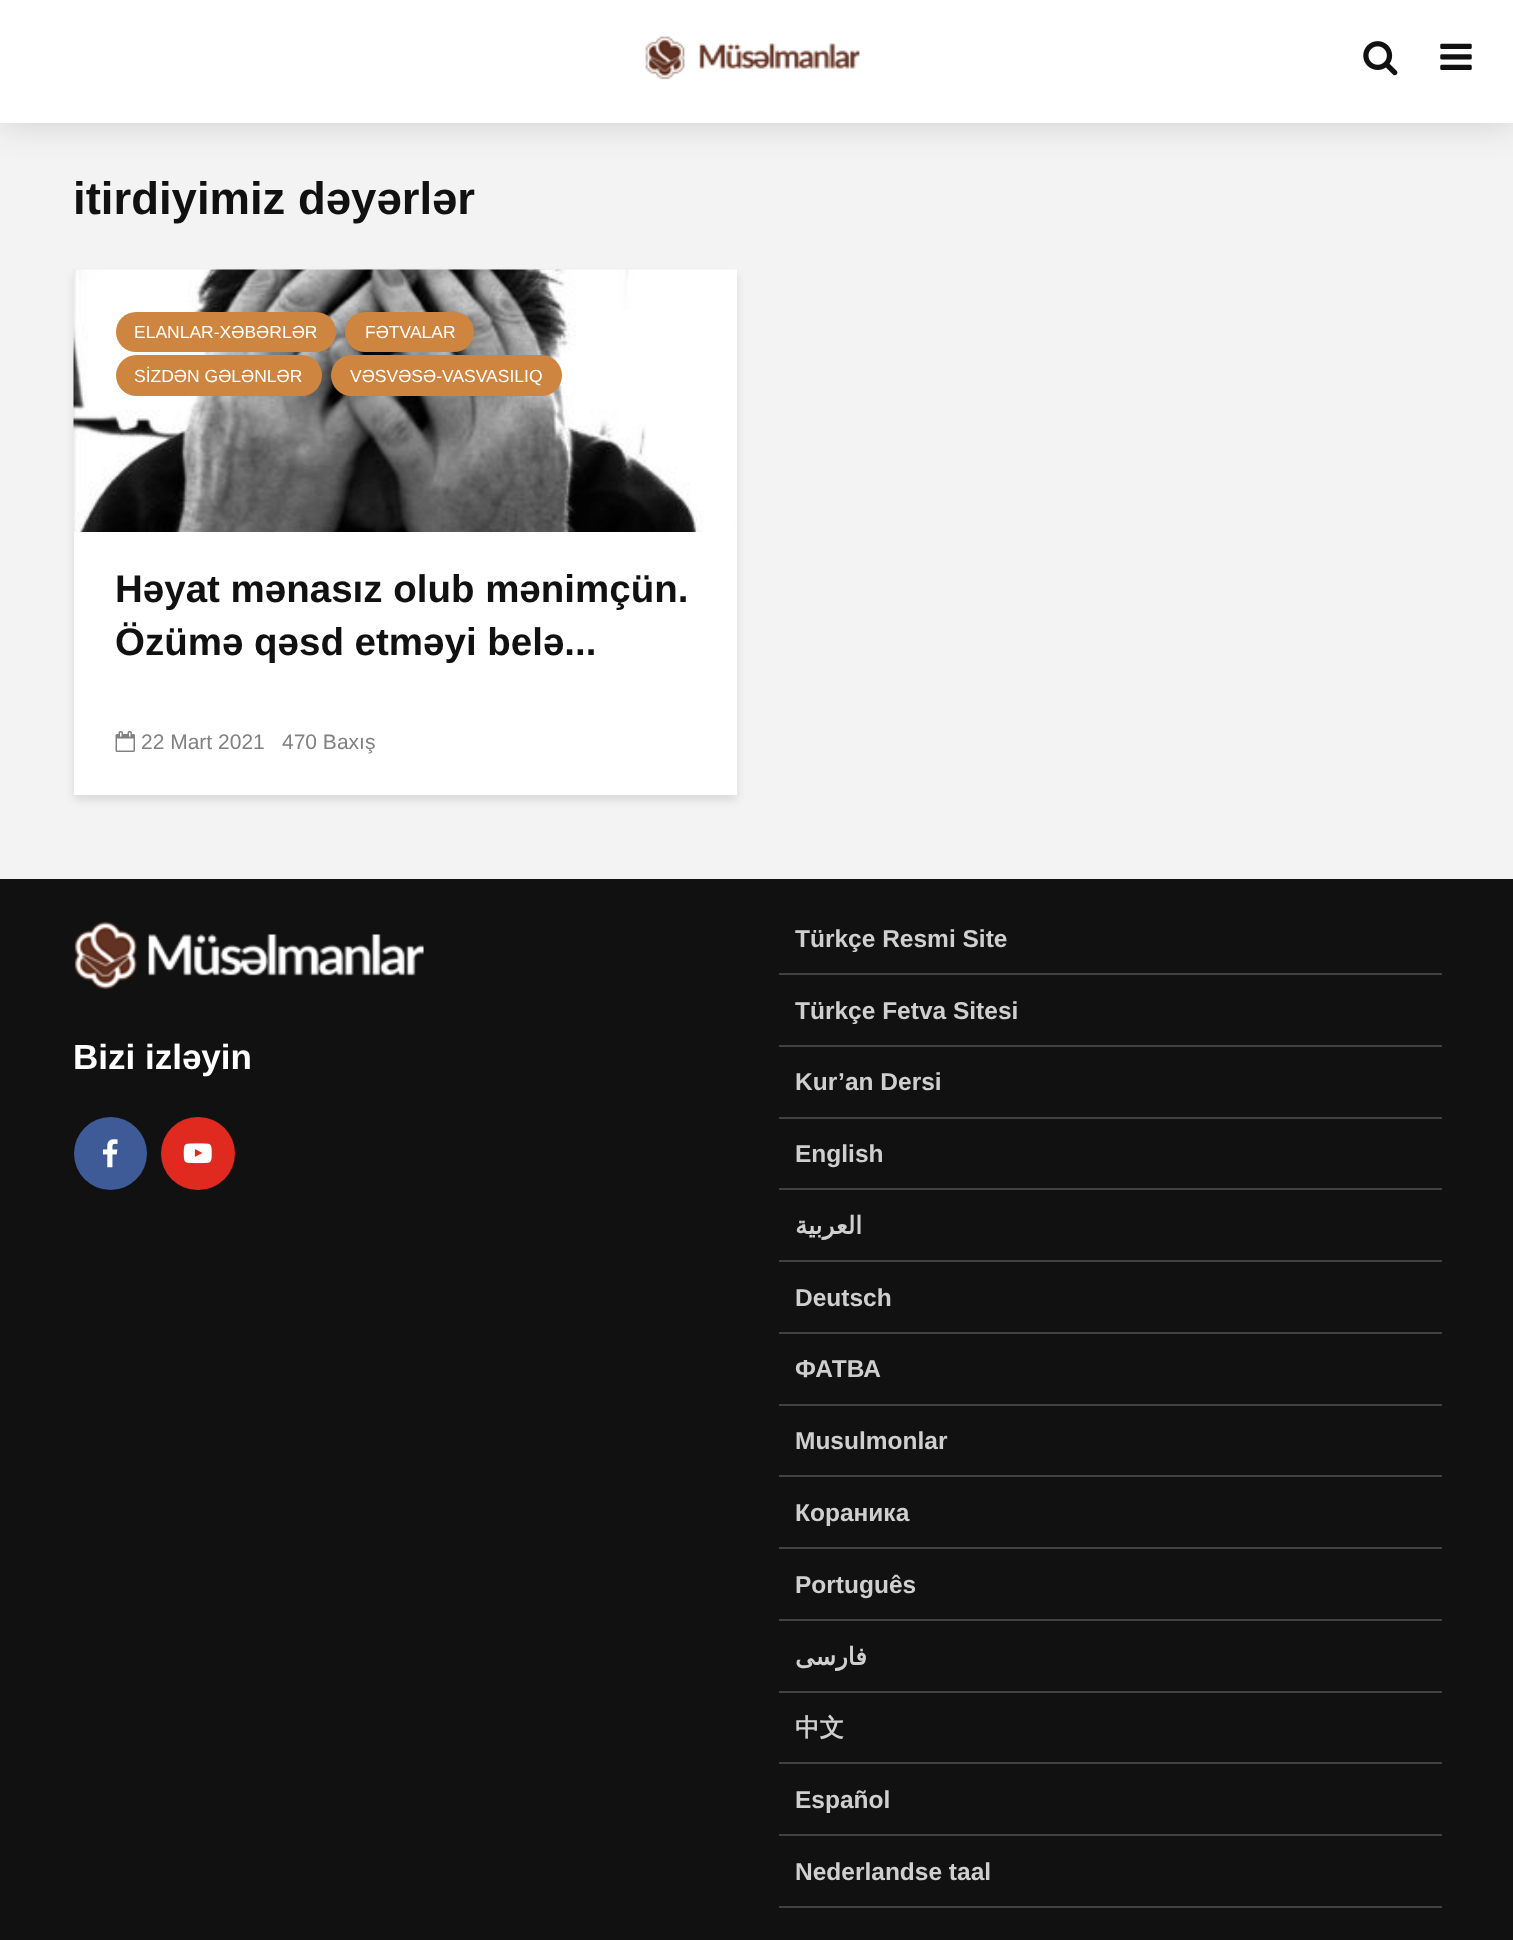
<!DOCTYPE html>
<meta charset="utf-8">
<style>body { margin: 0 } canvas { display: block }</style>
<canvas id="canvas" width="1513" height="1940"></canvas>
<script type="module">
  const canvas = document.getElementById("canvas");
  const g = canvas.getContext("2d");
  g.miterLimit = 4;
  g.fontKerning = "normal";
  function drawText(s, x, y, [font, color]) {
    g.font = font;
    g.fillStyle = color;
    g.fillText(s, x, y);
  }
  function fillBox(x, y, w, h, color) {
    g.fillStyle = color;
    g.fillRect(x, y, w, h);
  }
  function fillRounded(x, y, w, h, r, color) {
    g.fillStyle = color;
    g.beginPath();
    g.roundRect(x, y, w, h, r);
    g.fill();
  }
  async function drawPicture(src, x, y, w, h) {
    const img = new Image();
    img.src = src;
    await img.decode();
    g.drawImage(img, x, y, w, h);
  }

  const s1 = ["bold 45.5px Liberation Sans", "#111111"];
  const s2 = ["17.5px Liberation Sans", "#FFFFFF"];
  const s3 = ["bold 38.5px Liberation Sans", "#111111"];
  const s4 = ["21px Liberation Sans", "#818181"];
  const s5 = ["bold 35px Liberation Sans", "#FFFFFF"];
  const s6 = ["bold 24.5px Liberation Sans", "#CFCFCF"];
  const s7 = ["bold 24.5px DejaVu Sans", "#CFCFCF"];
  const s8 = ["bold 24.5px WenQuanYi Zen Hei", "#CFCFCF"];

  fillBox(0, 0, 1513, 1940, "#F3F3F3");
  g.fillStyle = "rgba(0, 0, 0, 0.15)";
  g.filter = "blur(17.5px)";
  g.beginPath();
  g.rect(0, 0, 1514, 123);
  g.fill();
  g.filter = "none";
  fillBox(0, 0, 1513, 123, "#FFFFFF");
  await drawPicture("pic1.png", 645, 36, 215, 44);
  await drawPicture("pic2.png", 1363, 41, 35, 35);
  await drawPicture("pic3.png", 1440, 43, 32, 27);
  drawText("itirdiyimiz dəyərlər", 73, 214, s1);
  g.fillStyle = "rgba(0, 1, 1, 0.1)";
  g.filter = "blur(4.5px)";
  g.beginPath();
  g.rect(74, 275, 663, 525);
  g.fill();
  g.filter = "none";
  fillBox(74, 270, 663, 525, "#FFFFFF");
  await drawPicture("pic4.png", 73, 269, 664, 263);
  fillRounded(116, 312, 220, 40, 20, "#CD853F");
  drawText("ELANLAR-XƏBƏRLƏR", 134, 338, s2);
  fillRounded(345, 312, 129, 40, 20, "#CD853F");
  drawText("FƏTVALAR", 365, 338, s2);
  fillRounded(116, 355, 206, 41, 20.5, "#CD853F");
  drawText("SİZDƏN GƏLƏNLƏR", 134, 382, s2);
  fillRounded(331, 355, 231, 41, 20.5, "#CD853F");
  drawText("VƏSVƏSƏ-VASVASILIQ", 350, 382, s2);
  drawText("Həyat mənasız olub mənimçün.", 115, 602, s3);
  drawText("Özümə qəsd etməyi belə...", 115, 655, s3);
  await drawPicture("pic5.png", 115, 731, 20, 21);
  drawText("22 Mart 2021", 141, 749, s4);
  drawText("470 Baxış", 282, 749, s4);
  fillBox(0, 879, 1513, 1061, "#111111");
  await drawPicture("pic6.png", 74, 921, 350, 69);
  drawText("Bizi izləyin", 73, 1069, s5);
  g.fillStyle = "#3E5B98";
  g.beginPath();
  g.arc(110.5, 1153.5, 36.5, 0, Math.PI * 2);
  g.fill();
  await drawPicture("pic7.png", 102, 1139, 16, 29);
  fillRounded(161, 1117, 74, 73, 36.5, "#E02A20");
  await drawPicture("pic8.png", 183, 1143, 29, 21);
  fillBox(779, 973, 663, 2, "#414141");
  drawText("Türkçe Resmi Site", 795, 947, s6);
  fillBox(779, 1045, 663, 2, "#414141");
  drawText("Türkçe Fetva Sitesi", 795, 1019, s6);
  fillBox(779, 1117, 663, 2, "#414141");
  drawText("Kur’an Dersi", 795, 1090, s6);
  fillBox(779, 1188, 663, 2, "#414141");
  drawText("English", 795, 1162, s6);
  fillBox(779, 1260, 663, 2, "#414141");
  g.direction = "rtl";
  drawText("العربية", 862, 1234, s7);
  fillBox(779, 1332, 663, 2, "#414141");
  g.direction = "ltr";
  drawText("Deutsch", 795, 1306, s6);
  fillBox(779, 1404, 663, 2, "#414141");
  drawText("ФАТВА", 795, 1377, s6);
  fillBox(779, 1475, 663, 2, "#414141");
  drawText("Musulmonlar", 795, 1449, s6);
  fillBox(779, 1547, 663, 2, "#414141");
  drawText("Кораника", 795, 1521, s6);
  fillBox(779, 1619, 663, 2, "#414141");
  drawText("Português", 795, 1593, s6);
  fillBox(779, 1691, 663, 2, "#414141");
  g.direction = "rtl";
  drawText("فارسی", 867, 1665, s7);
  fillBox(779, 1762, 663, 2, "#414141");
  g.direction = "ltr";
  drawText("中文", 795, 1736, s8);
  fillBox(779, 1834, 663, 2, "#414141");
  drawText("Español", 795, 1808, s6);
  fillBox(779, 1906, 663, 2, "#414141");
  drawText("Nederlandse taal", 795, 1880, s6);
</script>
